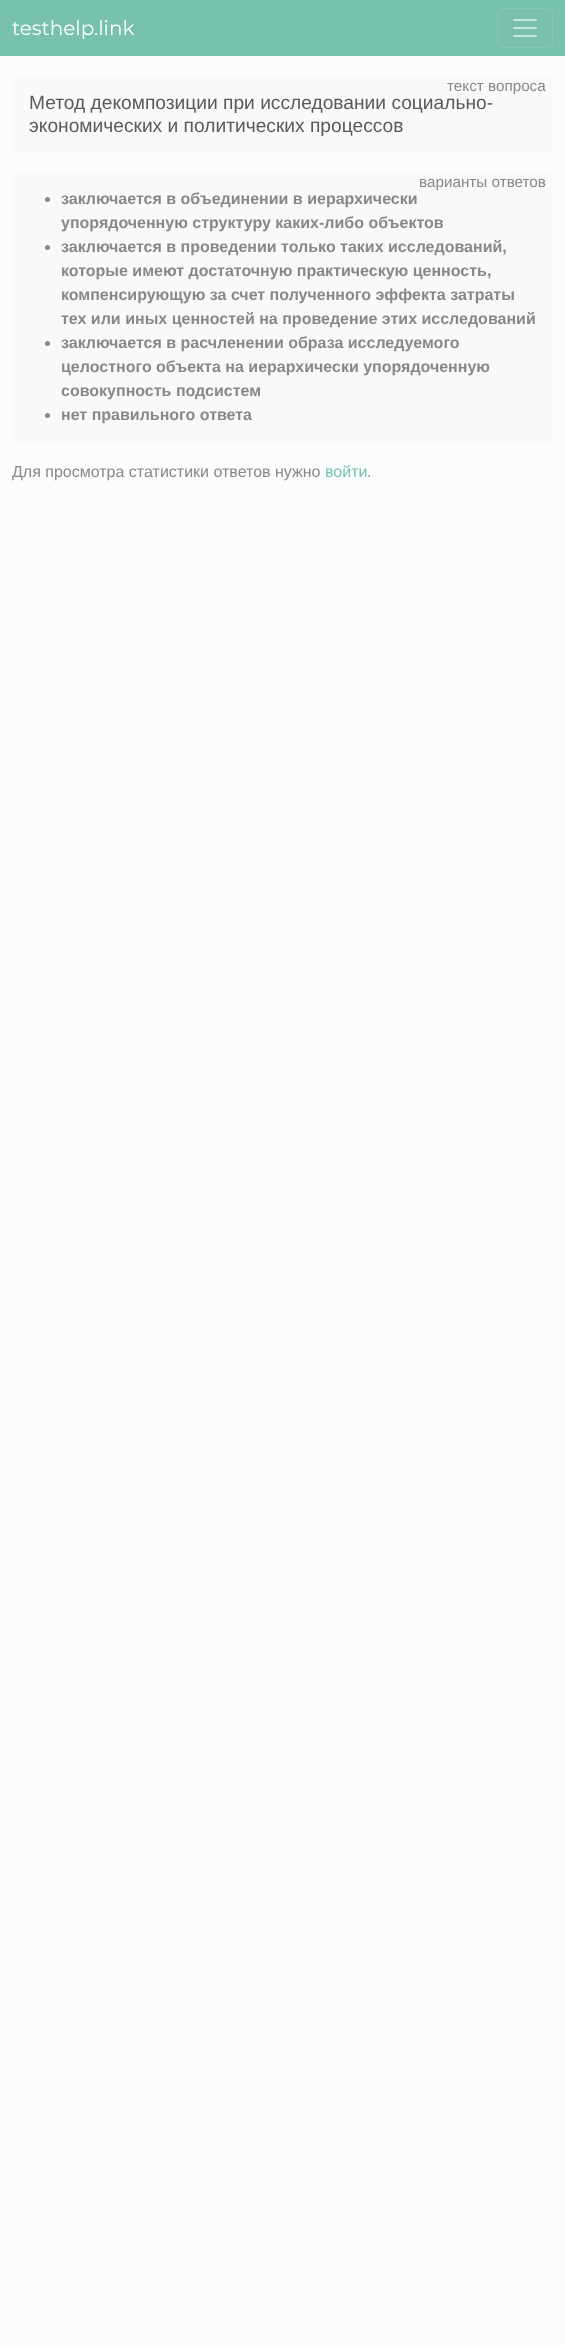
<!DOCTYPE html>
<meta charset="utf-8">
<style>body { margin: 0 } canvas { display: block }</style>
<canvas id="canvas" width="565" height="2345"></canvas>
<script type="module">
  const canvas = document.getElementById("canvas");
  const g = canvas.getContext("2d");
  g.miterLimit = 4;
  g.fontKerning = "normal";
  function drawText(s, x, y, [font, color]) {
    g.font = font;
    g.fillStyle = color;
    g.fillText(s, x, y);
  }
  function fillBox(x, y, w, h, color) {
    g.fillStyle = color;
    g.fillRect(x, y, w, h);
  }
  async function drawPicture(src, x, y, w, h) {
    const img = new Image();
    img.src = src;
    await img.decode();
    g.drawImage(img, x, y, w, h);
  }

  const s1 = ["20px Montserrat", "#FFFFFF"];
  const s2 = ["15.25px Liberation Sans", "#888888"];
  const s3 = ["19.2px Liberation Sans", "#5A5A5A"];
  const s4 = ["bold 16px Liberation Sans", "#888888"];
  const s5 = ["16px Liberation Sans", "#888888"];
  const s6 = ["16px Liberation Sans", "#78C2AD"];

  fillBox(0, 0, 565, 2345, "#FBFCFD");
  fillBox(0, 0, 565, 56, "#78C2AD");
  drawText("testhelp.link", 12, 35, s1);
  g.beginPath();
  g.roundRect(497.5, 8.5, 55, 39, 5.5);
  g.strokeStyle = "#86C8B5";
  g.stroke();
  await drawPicture("pic1.png", 513, 19, 24, 18);
  g.fillStyle = "#F8F9FA";
  g.beginPath();
  g.roundRect(12.5, 74.5, 540, 79, 5.5);
  g.fill();
  g.strokeStyle = "#FDFDFE";
  g.stroke();
  drawText("текст вопроса", 447, 91, s2);
  drawText("Метод декомпозиции при исследовании социально-", 29, 109, s3);
  drawText("экономических и политических процессов", 29, 132, s3);
  g.fillStyle = "#F8F9FA";
  g.beginPath();
  g.roundRect(12.5, 170.5, 540, 273, 5.5);
  g.fill();
  g.stroke();
  drawText("варианты ответов", 419, 187, s2);
  g.beginPath();
  g.arc(47.5, 199.5, 2.5, 0, Math.PI * 2);
  g.fill();
  drawText("заключается в объединении в иерархически", 61, 204, s4);
  drawText("упорядоченную структуру каких-либо объектов", 61, 228, s4);
  g.beginPath();
  g.arc(47.5, 247.5, 2.5, 0, Math.PI * 2);
  g.fill();
  drawText("заключается в проведении только таких исследований,", 61, 252, s4);
  drawText("которые имеют достаточную практическую ценность,", 61, 276, s4);
  drawText("компенсирующую за счет полученного эффекта затраты", 61, 300, s4);
  drawText("тех или иных ценностей на проведение этих исследований", 61, 324, s4);
  g.beginPath();
  g.arc(47.5, 343.5, 2.5, 0, Math.PI * 2);
  g.fill();
  drawText("заключается в расчленении образа исследуемого", 61, 348, s4);
  drawText("целостного объекта на иерархически упорядоченную", 61, 372, s4);
  drawText("совокупность подсистем", 61, 396, s4);
  g.beginPath();
  g.arc(47.5, 415.5, 2.5, 0, Math.PI * 2);
  g.fill();
  drawText("нет правильного ответа", 61, 420, s4);
  drawText("Для просмотра статистики ответов нужно", 12, 477, s5);
  drawText("войти", 325, 477, s6);
  drawText(".", 367, 477, s5);
</script>
